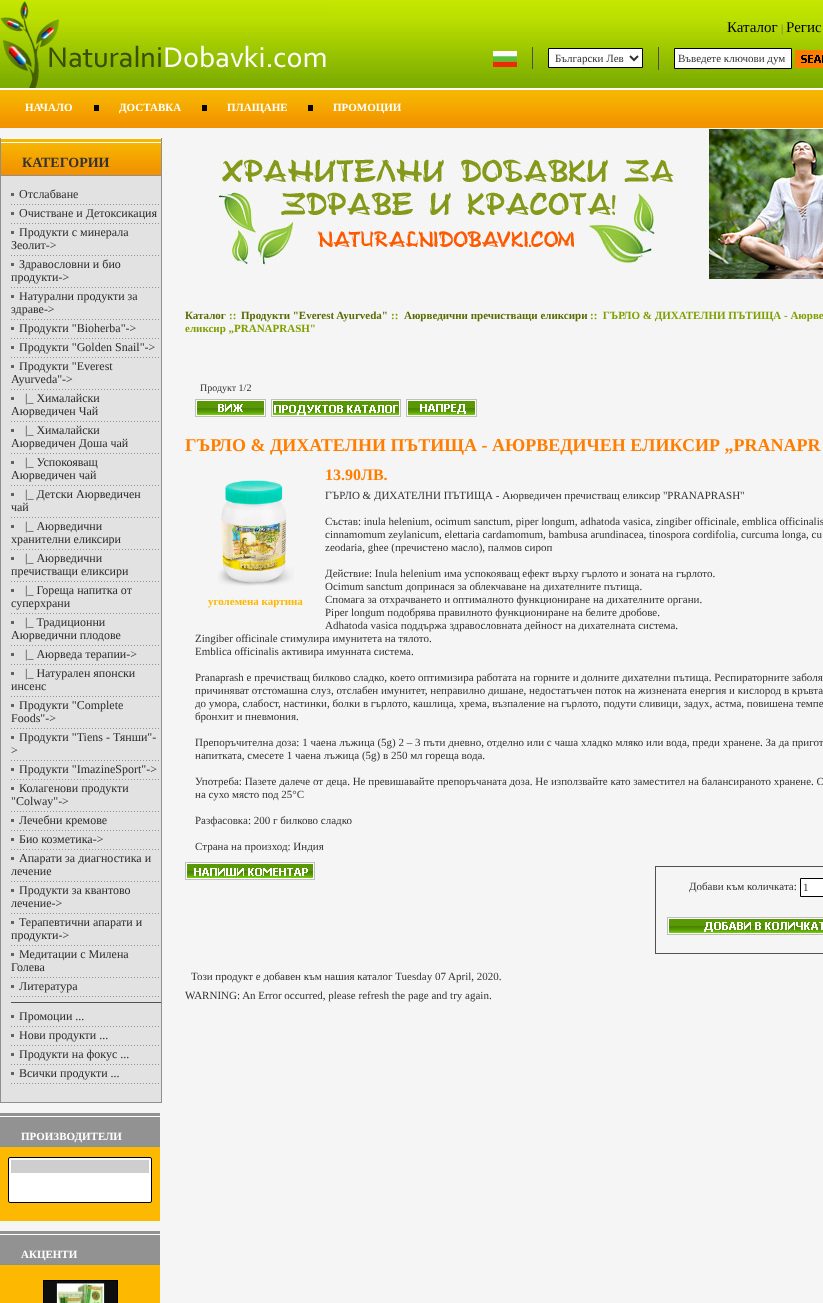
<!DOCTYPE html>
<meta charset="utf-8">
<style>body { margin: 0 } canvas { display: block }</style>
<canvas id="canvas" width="823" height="1303"></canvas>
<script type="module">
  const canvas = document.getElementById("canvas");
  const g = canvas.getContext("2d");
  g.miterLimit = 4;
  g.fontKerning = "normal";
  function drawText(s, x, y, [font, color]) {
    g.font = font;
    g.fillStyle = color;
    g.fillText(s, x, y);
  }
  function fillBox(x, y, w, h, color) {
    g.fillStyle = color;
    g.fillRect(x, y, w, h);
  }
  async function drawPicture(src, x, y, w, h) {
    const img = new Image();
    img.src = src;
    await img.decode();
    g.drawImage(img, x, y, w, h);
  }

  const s1 = ["15px Liberation Serif", "#000000"];
  const s2 = ["11px Liberation Serif", "#6D6D6D"];
  const s3 = ["11px Liberation Serif", "#333333"];
  const s4 = ["bold 11px Liberation Serif", "#FFFFFF"];
  const s5 = ["bold 14px Liberation Serif", "#333333"];
  const s6 = ["12px Liberation Serif", "#2C2C2C"];
  const s7 = ["bold 11px Liberation Serif", "#576C02"];
  const s8 = ["bold 11px Liberation Serif", "#809F03"];
  const s9 = ["10px Liberation Serif", "#333333"];
  const s10 = ["bold 18px Liberation Serif", "#FF7E00"];
  const s11 = ["bold 16px Liberation Serif", "#FF7E00"];
  const s12 = ["bold 11px Liberation Serif", "#FDB802"];

  fillBox(0, 0, 823, 1303, "#F5F5F5");
  await drawPicture("pic1.png", 327, 0, 496, 88);
  await drawPicture("pic2.png", 0, 0, 327, 88);
  drawText("Каталог", 727, 32, s1);
  drawText("|", 781, 32, s2);
  drawText("Регис", 786, 32, s1);
  await drawPicture("pic3.png", 493, 51, 24, 16);
  fillBox(532, 47, 1, 22, "#4D4D4D");
  g.fillStyle = "#FFFFFF";
  g.beginPath();
  g.rect(548.5, 48.5, 94, 19);
  g.fill();
  g.strokeStyle = "#000000";
  g.stroke();
  g.beginPath();
  g.moveTo(630, 56);
  g.lineTo(634, 60);
  g.lineTo(638, 56);
  g.strokeStyle = "#333333";
  g.lineWidth = 2;
  g.stroke();
  drawText("Български Лев", 555, 62, s3);
  fillBox(658, 47, 1, 23, "#4D4D4D");
  g.fillStyle = "#FFFFFF";
  g.beginPath();
  g.rect(674.5, 48.5, 117, 20);
  g.fill();
  g.strokeStyle = "#000000";
  g.lineWidth = 1;
  g.stroke();
  drawText("Въведете ключови дум", 678, 62, s3);
  await drawPicture("pic4.png", 795, 50, 28, 18);
  await drawPicture("pic5.png", 0, 88, 823, 40);
  drawText("НАЧАЛО", 25, 111, s4);
  fillBox(94, 105, 5, 6, "#000000");
  drawText("ДОСТАВКА", 119, 111, s4);
  fillBox(202, 105, 5, 6, "#000000");
  drawText("ПЛАЩАНЕ", 227, 111, s4);
  fillBox(308, 105, 5, 6, "#000000");
  drawText("ПРОМОЦИИ", 333, 111, s4);
  fillBox(1, 176, 160, 926, "#E2E2E2");
  fillBox(161, 138, 1, 965, "#8F8F8F");
  fillBox(0, 1102, 162, 1, "#8F8F8F");
  fillBox(0, 138, 1, 965, "#8F8F8F");
  await drawPicture("pic6.png", 1, 138, 160, 37);
  fillBox(1, 175, 160, 1, "#8F8F8F");
  drawText("КАТЕГОРИИ", 22, 167, s5);
  await drawPicture("pic7.png", 11, 204, 148, 1);
  drawText("Отслабване", 19, 198, s6);
  fillBox(11, 193, 3, 3, "#626262");
  await drawPicture("pic7.png", 11, 223, 148, 1);
  drawText("Очистване и Детоксикация", 19, 217, s6);
  fillBox(11, 212, 3, 3, "#626262");
  await drawPicture("pic7.png", 11, 255, 148, 1);
  drawText("Продукти с минерала", 19, 236, s6);
  fillBox(11, 231, 3, 3, "#626262");
  drawText("Зеолит->", 11, 249, s6);
  await drawPicture("pic7.png", 11, 287, 148, 1);
  drawText("Здравословни и био", 19, 268, s6);
  fillBox(11, 263, 3, 3, "#626262");
  drawText("продукти->", 11, 281, s6);
  await drawPicture("pic7.png", 11, 319, 148, 1);
  drawText("Натурални продукти за", 19, 300, s6);
  fillBox(11, 295, 3, 3, "#626262");
  drawText("здраве->", 11, 313, s6);
  await drawPicture("pic7.png", 11, 338, 148, 1);
  drawText("Продукти \"Bioherba\"->", 19, 332, s6);
  fillBox(11, 327, 3, 3, "#626262");
  await drawPicture("pic7.png", 11, 357, 148, 1);
  drawText("Продукти \"Golden Snail\"->", 19, 351, s6);
  fillBox(11, 346, 3, 3, "#626262");
  await drawPicture("pic7.png", 11, 389, 148, 1);
  drawText("Продукти \"Everest", 19, 370, s6);
  fillBox(11, 365, 3, 3, "#626262");
  drawText("Ayurveda\"->", 11, 383, s6);
  await drawPicture("pic7.png", 11, 421, 148, 1);
  drawText("|_ Хималайски", 25, 402, s6);
  fillBox(11, 397, 3, 3, "#626262");
  drawText("Аюрведичен Чай", 11, 415, s6);
  await drawPicture("pic7.png", 11, 453, 148, 1);
  drawText("|_ Хималайски", 25, 434, s6);
  fillBox(11, 429, 3, 3, "#626262");
  drawText("Аюрведичен Доша чай", 11, 447, s6);
  await drawPicture("pic7.png", 11, 485, 148, 1);
  drawText("|_ Успокояващ", 25, 466, s6);
  fillBox(11, 461, 3, 3, "#626262");
  drawText("Аюрведичен чай", 11, 479, s6);
  await drawPicture("pic7.png", 11, 517, 148, 1);
  drawText("|_ Детски Аюрведичен", 25, 498, s6);
  fillBox(11, 493, 3, 3, "#626262");
  drawText("чай", 11, 511, s6);
  await drawPicture("pic7.png", 11, 549, 148, 1);
  drawText("|_ Аюрведични", 25, 530, s6);
  fillBox(11, 525, 3, 3, "#626262");
  drawText("хранителни еликсири", 11, 543, s6);
  await drawPicture("pic7.png", 11, 581, 148, 1);
  drawText("|_ Аюрведични", 25, 562, s6);
  fillBox(11, 557, 3, 3, "#626262");
  drawText("пречистващи еликсири", 11, 575, s6);
  await drawPicture("pic7.png", 11, 613, 148, 1);
  drawText("|_ Гореща напитка от", 25, 594, s6);
  fillBox(11, 589, 3, 3, "#626262");
  drawText("суперхрани", 11, 607, s6);
  await drawPicture("pic7.png", 11, 645, 148, 1);
  drawText("|_ Традиционни", 25, 626, s6);
  fillBox(11, 621, 3, 3, "#626262");
  drawText("Аюрведични плодове", 11, 639, s6);
  await drawPicture("pic7.png", 11, 664, 148, 1);
  drawText("|_ Аюрведа терапии->", 25, 658, s6);
  fillBox(11, 653, 3, 3, "#626262");
  await drawPicture("pic7.png", 11, 696, 148, 1);
  drawText("|_ Натурален японски", 25, 677, s6);
  fillBox(11, 672, 3, 3, "#626262");
  drawText("инсенс", 11, 690, s6);
  await drawPicture("pic7.png", 11, 728, 148, 1);
  drawText("Продукти \"Complete", 19, 709, s6);
  fillBox(11, 704, 3, 3, "#626262");
  drawText("Foods\"->", 11, 722, s6);
  await drawPicture("pic7.png", 11, 760, 148, 1);
  drawText("Продукти \"Tiens - Тянши\"-", 19, 741, s6);
  fillBox(11, 736, 3, 3, "#626262");
  drawText(">", 11, 754, s6);
  await drawPicture("pic7.png", 11, 779, 148, 1);
  drawText("Продукти \"ImazineSport\"->", 19, 773, s6);
  fillBox(11, 768, 3, 3, "#626262");
  await drawPicture("pic7.png", 11, 811, 148, 1);
  drawText("Колагенови продукти", 19, 792, s6);
  fillBox(11, 787, 3, 3, "#626262");
  drawText("\"Colway\"->", 11, 805, s6);
  await drawPicture("pic7.png", 11, 830, 148, 1);
  drawText("Лечебни кремове", 19, 824, s6);
  fillBox(11, 819, 3, 3, "#626262");
  await drawPicture("pic7.png", 11, 849, 148, 1);
  drawText("Био козметика->", 19, 843, s6);
  fillBox(11, 838, 3, 3, "#626262");
  await drawPicture("pic7.png", 11, 881, 148, 1);
  drawText("Апарати за диагностика и", 19, 862, s6);
  fillBox(11, 857, 3, 3, "#626262");
  drawText("лечение", 11, 875, s6);
  await drawPicture("pic7.png", 11, 913, 148, 1);
  drawText("Продукти за квантово", 19, 894, s6);
  fillBox(11, 889, 3, 3, "#626262");
  drawText("лечение->", 11, 907, s6);
  await drawPicture("pic7.png", 11, 945, 148, 1);
  drawText("Терапевтични апарати и", 19, 926, s6);
  fillBox(11, 921, 3, 3, "#626262");
  drawText("продукти->", 11, 939, s6);
  await drawPicture("pic7.png", 11, 977, 148, 1);
  drawText("Медитации с Милена", 19, 958, s6);
  fillBox(11, 953, 3, 3, "#626262");
  drawText("Голева", 11, 971, s6);
  await drawPicture("pic7.png", 11, 996, 148, 1);
  drawText("Литература", 19, 990, s6);
  fillBox(11, 985, 3, 3, "#626262");
  fillBox(11, 1002, 150, 1, "#505151");
  await drawPicture("pic7.png", 11, 1026, 148, 1);
  drawText("Промоции ...", 19, 1020, s6);
  fillBox(11, 1015, 3, 3, "#626262");
  await drawPicture("pic7.png", 11, 1045, 148, 1);
  drawText("Нови продукти ...", 19, 1039, s6);
  fillBox(11, 1034, 3, 3, "#626262");
  await drawPicture("pic7.png", 11, 1064, 148, 1);
  drawText("Продукти на фокус ...", 19, 1058, s6);
  fillBox(11, 1053, 3, 3, "#626262");
  await drawPicture("pic7.png", 11, 1083, 148, 1);
  drawText("Всички продукти ...", 19, 1077, s6);
  fillBox(11, 1072, 3, 3, "#626262");
  fillBox(0, 1147, 160, 74, "#FDB802");
  await drawPicture("pic8.png", 0, 1113, 160, 33);
  fillBox(0, 1146, 160, 1, "#8F8F8F");
  drawText("ПРОИЗВОДИТЕЛИ", 21, 1140, s4);
  g.beginPath();
  g.roundRect(8.5, 1157.5, 143, 45, 1.5);
  g.fill();
  g.stroke();
  fillBox(11, 1160, 138, 13, "#CECECE");
  fillBox(0, 1265, 160, 38, "#FDB802");
  await drawPicture("pic8.png", 0, 1231, 160, 33);
  fillBox(0, 1264, 160, 1, "#8F8F8F");
  drawText("АКЦЕНТИ", 21, 1258, s4);
  g.strokeRect(43.5, 1280.5, 74, 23);
  await drawPicture("pic9.png", 44, 1281, 73, 22);
  await drawPicture("pic10.png", 217, 128, 606, 152);
  drawText("Каталог", 185, 319, s7);
  drawText("::", 229, 319, s8);
  drawText("Продукти \"Everest Ayurveda\"", 241, 319, s7);
  drawText("::", 391, 319, s8);
  drawText("Аюрведични пречистващи еликсири", 404, 319, s7);
  drawText("::  ГЪРЛО & ДИХАТЕЛНИ ПЪТИЩА - Аюрве", 590, 319, s8);
  drawText("еликсир „PRANAPRASH\"", 185, 332, s8);
  drawText("Продукт 1/2", 200, 391, s9);
  await drawPicture("pic11.png", 195, 399, 71, 18);
  await drawPicture("pic12.png", 271, 399, 130, 18);
  await drawPicture("pic13.png", 406, 399, 71, 18);
  drawText("ГЪРЛО & ДИХАТЕЛНИ ПЪТИЩА - АЮРВЕДИЧЕН ЕЛИКСИР „PRANAPR", 185, 451, s10);
  drawText("13.90ЛВ.", 325, 480, s11);
  drawText("ГЪРЛО & ДИХАТЕЛНИ ПЪТИЩА - Аюрведичен пречистващ еликсир \"PRANAPRASH\"", 325, 499, s3);
  drawText("Състав: inula helenium, ocimum sanctum, piper longum, adhatoda vasica, zingiber officinale, emblica officinalis", 325, 525, s3);
  drawText("cinnamomum zeylanicum, elettaria cardamomum, bambusa arundinacea, tinospora cordifolia, curcuma longa, cu", 325, 538, s3);
  drawText("zeodaria, ghee (пречистено масло), палмов сироп", 325, 551, s3);
  drawText("Действие: Inula helenium има успокояващ ефект върху гърлото и зоната на гърлото.", 325, 577, s3);
  drawText("Ocimum sanctum допринася за облекчаване на дихателните пътища.", 325, 590, s3);
  drawText("Спомага за отхрачването и оптималното функциониране на дихателните органи.", 325, 603, s3);
  drawText("Piper longum подобрява правилното функциониране на белите дробове.", 325, 616, s3);
  drawText("Adhatoda vasica поддържа здравословната дейност на дихателната система.", 325, 629, s3);
  drawText("Zingiber officinale стимулира имунитета на тялото.", 195, 642, s3);
  drawText("Emblica officinalis активира имунната система.", 195, 655, s3);
  drawText("Pranaprash е пречистващ билково сладко, което оптимизира работата на горните и долните дихателни пътища. Респираторните заболя", 195, 681, s3);
  drawText("причиняват отстомашна слуз, отслабен имунитет, неправилно дишане, недостатъчен поток на жизнената енергия и кислород в кръвта", 195, 694, s3);
  drawText("до умора, слабост, настинки, болки в гърлото, кашлица, хрема, възпаление на гърлото, подути сливици, задух, астма, повишена темпе", 195, 707, s3);
  drawText("бронхит и пневмония.", 195, 720, s3);
  drawText("Препоръчителна доза: 1 чаена лъжица (5g) 2 – 3 пъти дневно, отделно или с чаша хладко мляко или вода, преди хранене. За да пригот", 195, 746, s3);
  drawText("напитката, смесете 1 чаена лъжица (5g) в 250 мл гореща вода.", 195, 759, s3);
  drawText("Употреба: Пазете далече от деца. Не превишавайте препоръчаната доза. Не използвайте като заместител на балансираното хранене. С", 195, 785, s3);
  drawText("на сухо място под 25°C", 195, 798, s3);
  drawText("Разфасовка: 200 г билково сладко", 195, 824, s3);
  drawText("Страна на произход: Индия", 195, 850, s3);
  await drawPicture("pic14.png", 218, 480, 76, 106);
  drawText("уголемена картина", 208, 605, s12);
  await drawPicture("pic15.png", 185, 862, 130, 18);
  g.strokeStyle = "#505151";
  g.strokeRect(655.5, 866.5, 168, 87);
  drawText("Добави към количката:", 689, 890, s3);
  g.fillStyle = "#FFFFFF";
  g.beginPath();
  g.rect(800.5, 878.5, 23, 18);
  g.fill();
  g.strokeStyle = "#000000";
  g.stroke();
  drawText("1", 803, 891, s3);
  await drawPicture("pic16.png", 667, 917, 156, 18);
  drawText("Този продукт е добавен към нашия каталог Tuesday 07 April, 2020.", 191, 980, s3);
  drawText("WARNING: An Error occurred, please refresh the page and try again.", 185, 999, s3);
</script>
